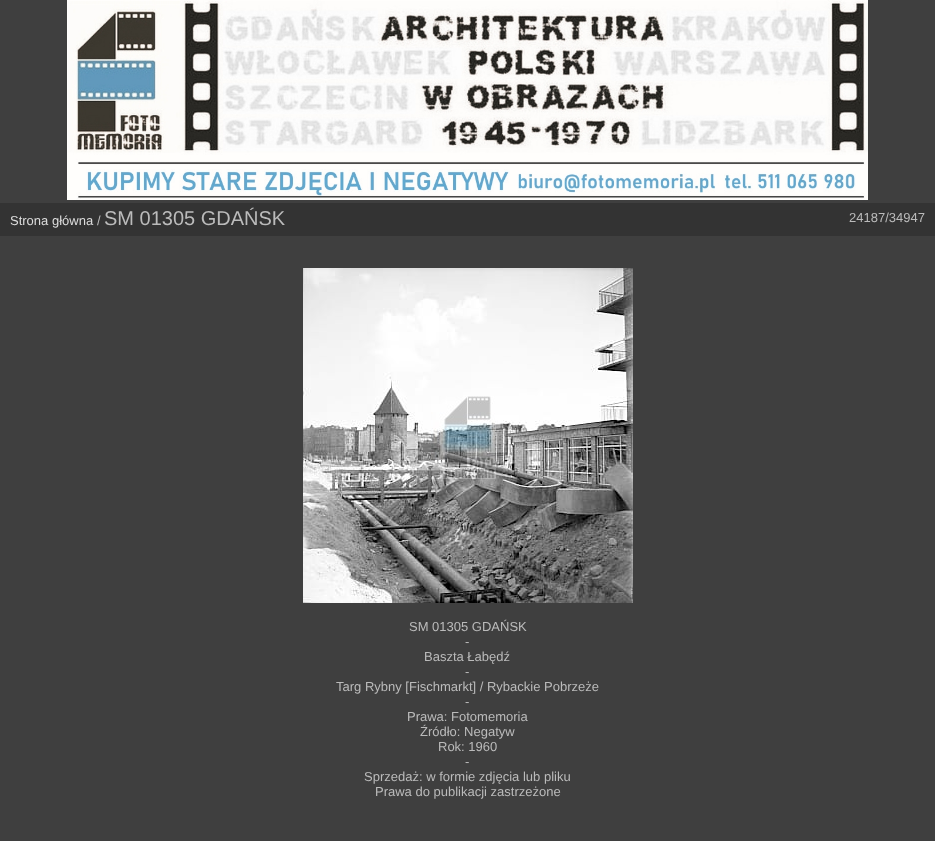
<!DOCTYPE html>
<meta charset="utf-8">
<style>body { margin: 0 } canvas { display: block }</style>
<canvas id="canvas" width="935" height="841"></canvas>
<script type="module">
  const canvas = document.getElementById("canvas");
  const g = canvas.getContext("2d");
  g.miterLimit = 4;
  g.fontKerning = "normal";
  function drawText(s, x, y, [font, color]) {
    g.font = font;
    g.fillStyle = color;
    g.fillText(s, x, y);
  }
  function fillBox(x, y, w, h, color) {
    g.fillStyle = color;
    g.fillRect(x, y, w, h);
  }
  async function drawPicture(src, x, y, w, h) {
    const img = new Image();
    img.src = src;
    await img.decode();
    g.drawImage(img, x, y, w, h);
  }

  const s1 = ["13px Liberation Sans", "#DDDDDD"];
  const s2 = ["13px Liberation Sans", "#BBBBBB"];
  const s3 = ["20px Liberation Sans", "#BBBBBB"];

  fillBox(0, 0, 935, 841, "#3F3F3F");
  await drawPicture("pic1.png", 67, 0, 801, 200);
  fillBox(0, 203, 935, 33, "#333333");
  drawText("Strona główna", 10, 225, s1);
  drawText("/", 97, 225, s2);
  drawText("SM 01305 GDAŃSK", 104, 225, s3);
  drawText("24187/34947", 849, 222, s2);
  await drawPicture("pic2.png", 303, 268, 330, 335);
  drawText("SM 01305 GDAŃSK", 409, 631, s2);
  drawText("-", 465, 646, s2);
  drawText("Baszta Łabędź", 424, 661, s2);
  drawText("-", 465, 676, s2);
  drawText("Targ Rybny [Fischmarkt] / Rybackie Pobrzeże", 336, 691, s2);
  drawText("-", 465, 706, s2);
  drawText("Prawa: Fotomemoria", 407, 721, s2);
  drawText("Źródło: Negatyw", 420, 736, s2);
  drawText("Rok: 1960", 438, 751, s2);
  drawText("-", 465, 766, s2);
  drawText("Sprzedaż: w formie zdjęcia lub pliku", 364, 781, s2);
  drawText("Prawa do publikacji zastrzeżone", 375, 796, s2);
</script>
